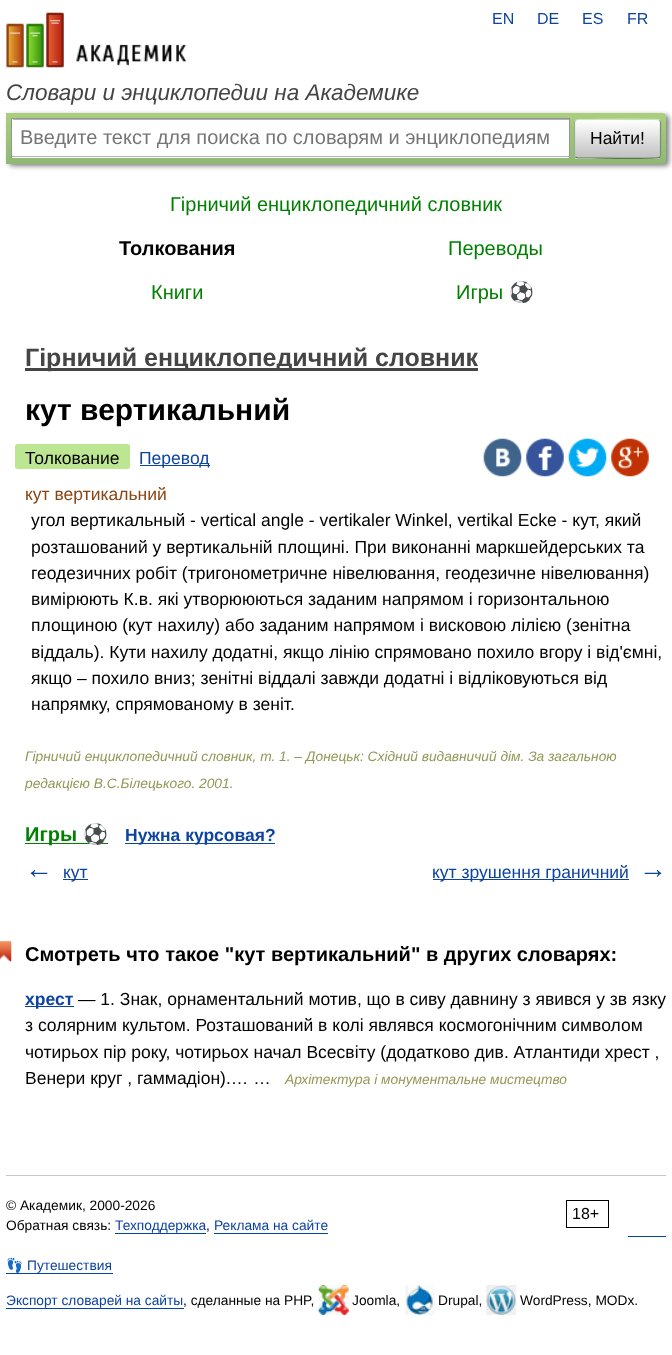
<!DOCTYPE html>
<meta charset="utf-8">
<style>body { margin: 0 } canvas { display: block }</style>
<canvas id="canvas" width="672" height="1355"></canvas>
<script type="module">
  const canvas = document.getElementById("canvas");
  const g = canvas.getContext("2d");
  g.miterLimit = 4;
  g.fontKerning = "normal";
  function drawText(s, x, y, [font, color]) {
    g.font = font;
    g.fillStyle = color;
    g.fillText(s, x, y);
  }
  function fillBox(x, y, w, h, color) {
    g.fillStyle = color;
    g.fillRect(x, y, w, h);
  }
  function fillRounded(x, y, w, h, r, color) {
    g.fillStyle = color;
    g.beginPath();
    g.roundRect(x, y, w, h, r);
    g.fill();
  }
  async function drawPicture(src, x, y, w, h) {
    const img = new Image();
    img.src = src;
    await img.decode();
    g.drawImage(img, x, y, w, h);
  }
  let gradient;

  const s1 = ["16px Liberation Sans", "#0D44A0"];
  const s2 = ["italic 22.5px Liberation Sans", "#454545"];
  const s3 = ["20px Liberation Sans", "#757575"];
  const s4 = ["17.5px Liberation Sans", "#000000"];
  const s5 = ["20px Liberation Sans", "#008000"];
  const s6 = ["bold 20px Liberation Sans", "#000000"];
  const s7 = ["20px Noto Color Emoji", "#008000"];
  const s8 = ["bold 25px Liberation Sans", "#454545"];
  const s9 = ["bold 30px Liberation Sans", "#000000"];
  const s10 = ["17.5px Liberation Sans", "#0D44A0"];
  const s11 = ["17.5px Liberation Sans", "#8B4513"];
  const s12 = ["italic 13.75px Liberation Sans", "#939756"];
  const s13 = ["bold 20px Liberation Sans", "#008000"];
  const s14 = ["bold 20px Noto Color Emoji", "#008000"];
  const s15 = ["bold 17.5px Liberation Sans", "#0D44A0"];
  const s16 = ["bold 28px Liberation Sans", "#0D44A0"];
  const s17 = ["13.75px Liberation Sans", "#000000"];
  const s18 = ["16px Liberation Sans", "#000000"];
  const s19 = ["13.75px Liberation Sans", "#0D44A0"];
  const s20 = ["13.75px Noto Color Emoji", "#0D44A0"];

  fillBox(0, 0, 672, 1355, "#FFFFFF");
  await drawPicture("pic1.png", 6, 12, 181, 56);
  drawText("EN", 492, 24, s1);
  drawText("DE", 537, 24, s1);
  drawText("ES", 582, 24, s1);
  drawText("FR", 627, 24, s1);
  drawText("Словари и энциклопедии на Академике", 6, 100, s2);
  g.fillStyle = "rgba(0, 0, 0, 0.5)";
  g.filter = "blur(2.5px)";
  g.beginPath();
  g.roundRect(9, 115, 660, 51, 4);
  g.fill();
  g.filter = "none";
  gradient = g.createLinearGradient(336, 112, 336, 164);
  gradient.addColorStop(0, "#ABCF7E");
  gradient.addColorStop(1, "#8EB874");
  g.fillStyle = gradient;
  g.beginPath();
  g.roundRect(6, 113, 660, 51, [0, 4, 4, 0]);
  g.fill();
  fillBox(12, 119, 557, 39, "#FFFFFF");
  fillBox(13, 119, 556, 1, "#B3B3B3");
  fillBox(11, 118, 559, 1, "#949494");
  fillBox(569, 118, 1, 40, "#949494");
  fillBox(11, 156, 559, 1, "#B4B4B4");
  fillBox(11, 118, 1, 40, "#949494");
  drawText("Введите текст для поиска по словарям и энциклопедиям", 20, 144, s3);
  g.save();
  g.beginPath();
  g.roundRect(574, 119, 87, 40, 4);
  g.clip();
  gradient = g.createLinearGradient(618, 120, 618, 158);
  gradient.addColorStop(0, "#FFFFFF");
  gradient.addColorStop(1, "#C1C1C1");
  g.fillStyle = gradient;
  g.fillRect(574, 120, 87, 38);
  gradient = g.createLinearGradient(618, 158, 618, 195);
  gradient.addColorStop(0, "#FFFFFF");
  gradient.addColorStop(1, "#C1C1C1");
  g.fillStyle = gradient;
  g.fillRect(574, 158, 87, 1);
  g.restore();
  g.beginPath();
  g.moveTo(575.5, 120.5);
  g.lineTo(577.5, 119.5);
  g.lineTo(591, 119.5);
  g.bezierCurveTo(598.5, 119.5, 657.5, 118.5, 659.5, 120);
  g.lineTo(659.5, 120.5);
  g.strokeStyle = "#D1E4BC";
  g.lineWidth = 1.2;
  g.stroke();
  g.beginPath();
  g.moveTo(659.5, 120.5);
  g.bezierCurveTo(660.5, 121, 660.5, 121.5, 660.5, 122.5);
  g.lineTo(660.5, 155);
  g.bezierCurveTo(660.5, 156, 660.5, 156.5, 659.5, 157);
  g.strokeStyle = "#7A8E69";
  g.stroke();
  g.beginPath();
  g.moveTo(659.5, 157);
  g.lineTo(659.5, 157.5);
  g.bezierCurveTo(657.5, 159, 598.5, 158, 591, 158);
  g.lineTo(577.5, 158);
  g.lineTo(575.5, 157);
  g.strokeStyle = "#5D7250";
  g.stroke();
  g.beginPath();
  g.moveTo(575.5, 157);
  g.bezierCurveTo(574.5, 156.5, 574.5, 156, 574.5, 155);
  g.lineTo(574.5, 122.5);
  g.bezierCurveTo(574.5, 121.5, 574.5, 121, 575.5, 120.5);
  g.strokeStyle = "#9AAE89";
  g.stroke();
  drawText("Найти!", 590, 144, s4);
  drawText("Гірничий енциклопедичний словник", 170, 211, s5);
  drawText("Толкования", 119, 255, s6);
  drawText("Переводы", 448, 255, s5);
  drawText("Книги", 151, 299, s5);
  drawText("Игры", 456, 299, s5);
  drawText("⚽", 509, 299, s7);
  fillBox(25, 368, 453, 3, "#454545");
  drawText("Гірничий енциклопедичний словник", 25, 366, s8);
  drawText("кут вертикальний", 25, 420, s9);
  fillRounded(15, 444, 115, 25, 2.5, "#BDE693");
  drawText("Толкование", 25, 464, s4);
  fillBox(140, 465, 70, 1, "#0D44A0");
  drawText("Перевод", 139, 464, s10);
  await drawPicture("pic2.png", 483, 438, 39, 39);
  await drawPicture("pic3.png", 526, 438, 38, 39);
  await drawPicture("pic4.png", 568, 438, 39, 39);
  await drawPicture("pic5.png", 611, 438, 38, 39);
  drawText("кут вертикальний", 25, 500, s11);
  drawText("угол вертикальный - vertical angle - vertikaler Winkel, vertikal Ecke - кут, який", 31, 526, s4);
  drawText("розташований у вертикальній площині. При виконанні маркшейдерських та", 31, 553, s4);
  drawText("геодезичних робіт (тригонометричне нівелювання, геодезичне нівелювання)", 31, 579, s4);
  drawText("вимірюють К.в. які утворююються заданим напрямом і горизонтальною", 31, 605, s4);
  drawText("площиною (кут нахилу) або заданим напрямом і висковою лілією (зенітна", 31, 631, s4);
  drawText("віддаль). Кути нахилу додатні, якщо лінію спрямовано похило вгору і від'ємні,", 31, 658, s4);
  drawText("якщо – похило вниз; зенітні віддалі завжди додатні і відліковуються від", 31, 684, s4);
  drawText("напрямку, спрямованому в зеніт.", 31, 710, s4);
  drawText("Гірничий енциклопедичний словник, т. 1. – Донецьк: Східний видавничий дім. За загальною", 25, 761, s12);
  drawText("редакцією В.С.Білецького. 2001.", 25, 788, s12);
  fillBox(25, 843, 83, 1, "#008000");
  drawText("Игры", 25, 841, s13);
  drawText("⚽", 83, 841, s14);
  fillBox(125, 843, 150, 1, "#0D44A0");
  drawText("Нужна курсовая?", 125, 841, s15);
  drawText("←", 25, 878, s16);
  fillBox(63, 879, 25, 1, "#0D44A0");
  drawText("кут", 63, 878, s10);
  fillBox(433, 879, 196, 1, "#0D44A0");
  drawText("кут зрушення граничний", 432, 878, s10);
  drawText("→", 639, 878, s16);
  await drawPicture("pic6.png", 0, 941, 12, 21);
  drawText("Смотреть что такое \"кут вертикальний\" в других словарях:", 25, 961, s6);
  fillBox(25, 1006, 49, 1, "#0D44A0");
  drawText("хрест", 25, 1005, s15);
  drawText("— 1. Знак, орнаментальний мотив, що в сиву давнину з явився у зв язку", 78, 1005, s4);
  drawText("з солярним культом. Розташований в колі являвся космогонічним символом", 25, 1031, s4);
  drawText("чотирьох пір року, чотирьох начал Всесвіту (додатково див. Атлантиди хрест ,", 25, 1058, s4);
  drawText("Венери круг , гаммадіон).… …", 25, 1084, s4);
  drawText("Архітектура і монументальне мистецтво", 285, 1084, s12);
  fillBox(6, 1175, 660, 1, "#C7C7C7");
  drawText("© Академик, 2000-2026", 6, 1210, s17);
  g.strokeStyle = "#000000";
  g.lineWidth = 1;
  g.strokeRect(566.5, 1200.5, 42, 27);
  drawText("18+", 572, 1219, s18);
  drawText("Обратная связь:", 6, 1230, s17);
  drawText("Техподдержка", 115, 1230, s19);
  fillBox(115, 1233, 91, 1, "#0044AA");
  drawText(",", 206, 1230, s17);
  drawText("Реклама на сайте", 214, 1230, s19);
  fillBox(214, 1233, 114, 1, "#0044AA");
  fillBox(628, 1236, 38, 1, "#0044AA");
  drawText("👣", 6, 1270, s20);
  drawText("Путешествия", 27, 1270, s19);
  fillBox(6, 1273, 107, 1, "#0044AA");
  drawText("Экспорт словарей на сайты", 6, 1305, s19);
  fillBox(6, 1308, 178, 1, "#0044AA");
  drawText(", сделанные на PHP,", 183, 1305, s17);
  await drawPicture("pic7.png", 318, 1285, 31, 30);
  drawText("Joomla,", 352, 1305, s17);
  await drawPicture("pic8.png", 405, 1285, 30, 30);
  drawText("Drupal,", 438, 1305, s17);
  await drawPicture("pic9.png", 486, 1285, 31, 30);
  drawText("WordPress, MODx.", 520, 1305, s17);
</script>
